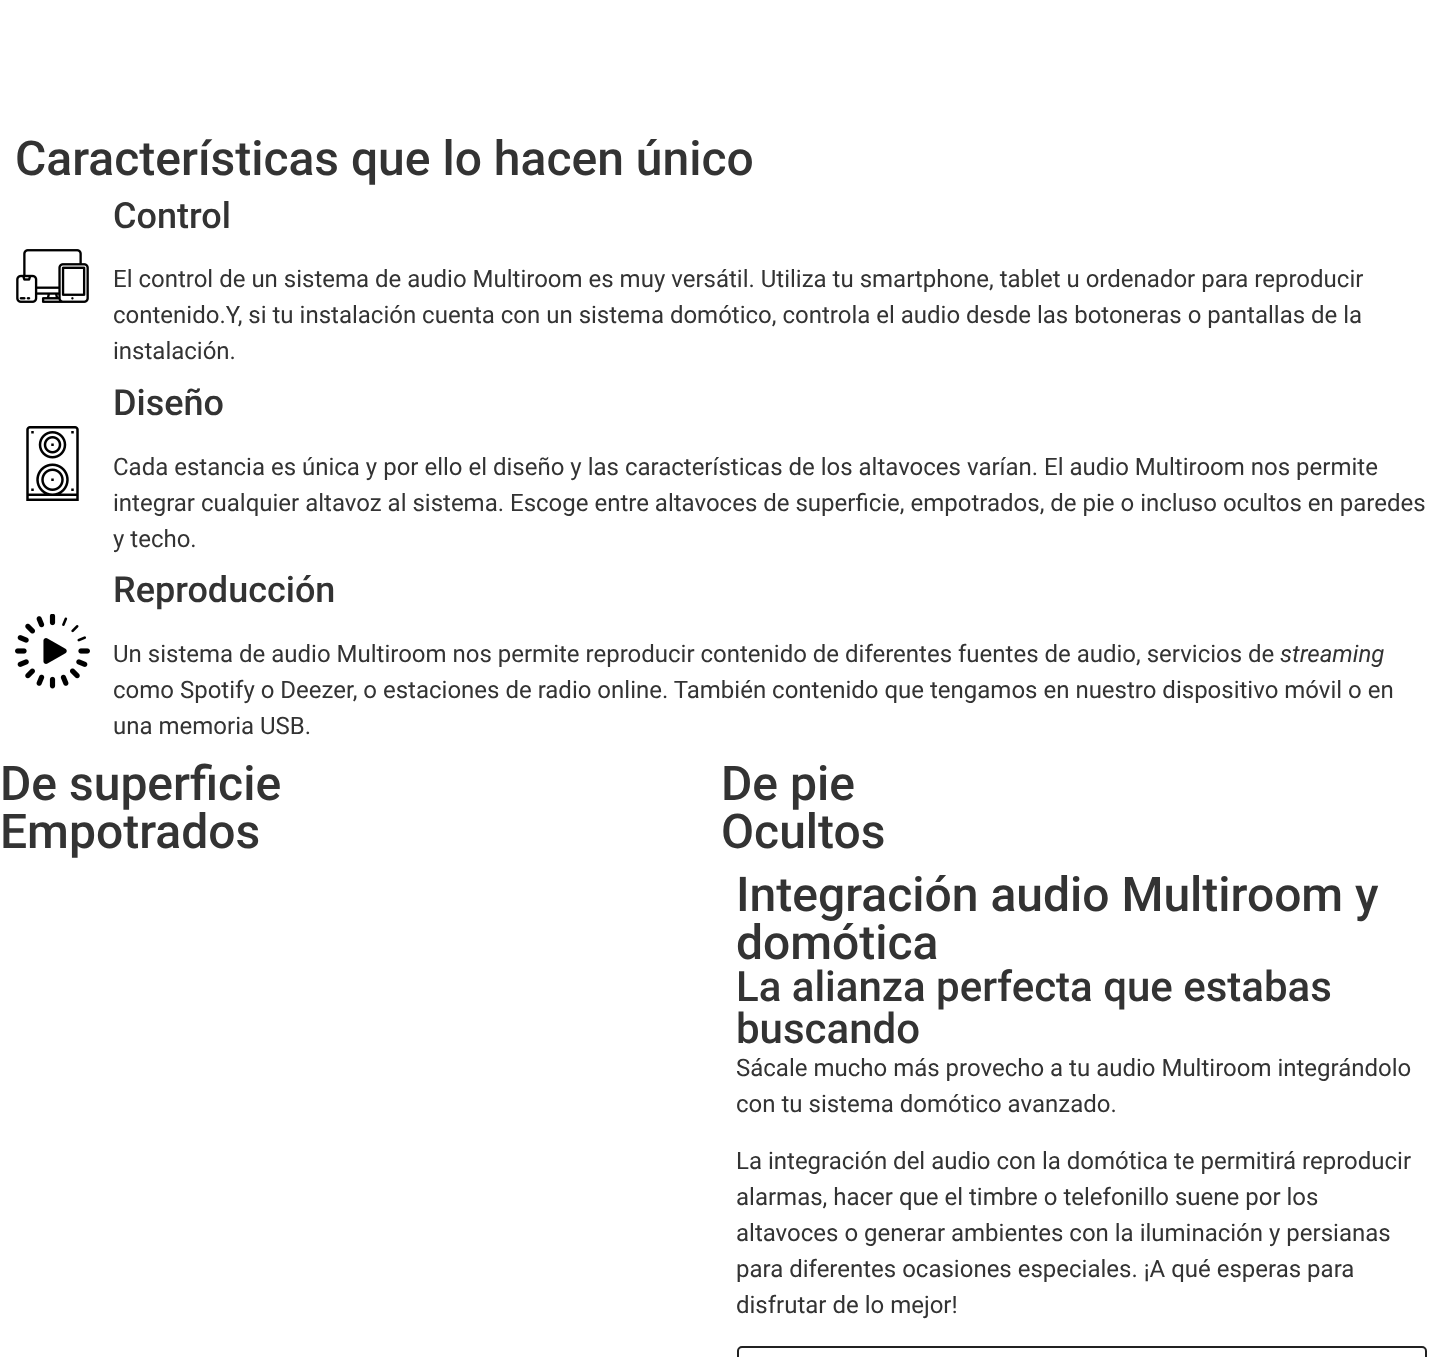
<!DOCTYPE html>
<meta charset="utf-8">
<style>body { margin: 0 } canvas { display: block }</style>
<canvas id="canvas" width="1441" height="1357"></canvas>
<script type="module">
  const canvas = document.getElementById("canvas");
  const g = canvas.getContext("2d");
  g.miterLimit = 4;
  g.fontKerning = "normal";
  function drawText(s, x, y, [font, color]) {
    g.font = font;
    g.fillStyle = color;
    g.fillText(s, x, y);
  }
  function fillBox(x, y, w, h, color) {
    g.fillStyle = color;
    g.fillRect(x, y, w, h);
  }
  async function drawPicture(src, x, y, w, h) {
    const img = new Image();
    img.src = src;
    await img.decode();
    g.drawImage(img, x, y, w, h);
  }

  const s1 = ["500 48px Roboto", "#333333"];
  const s2 = ["500 36px Roboto", "#333333"];
  const s3 = ["24px Roboto", "#333333"];
  const s4 = ["italic 24px Roboto", "#333333"];
  const s5 = ["500 42px Roboto", "#333333"];

  fillBox(0, 0, 1441, 1357, "#FFFFFF");
  drawText("Características que lo hacen único", 15, 175, s1);
  await drawPicture("pic1.png", 16, 249, 73, 54);
  drawText("Control", 113, 228, s2);
  drawText("El control de un sistema de audio Multiroom es muy versátil. Utiliza tu smartphone, tablet u ordenador para reproducir", 113, 287, s3);
  drawText("contenido.Y, si tu instalación cuenta con un sistema domótico, controla el audio desde las botoneras o pantallas de la", 113, 323, s3);
  drawText("instalación.", 113, 359, s3);
  await drawPicture("pic2.png", 26, 426, 53, 75);
  drawText("Diseño", 113, 415, s2);
  drawText("Cada estancia es única y por ello el diseño y las características de los altavoces varían. El audio Multiroom nos permite", 113, 475, s3);
  drawText("integrar cualquier altavoz al sistema. Escoge entre altavoces de superficie, empotrados, de pie o incluso ocultos en paredes", 113, 511, s3);
  drawText("y techo.", 113, 547, s3);
  await drawPicture("pic3.png", 15, 614, 75, 75);
  drawText("Reproducción", 113, 602, s2);
  drawText("Un sistema de audio Multiroom nos permite reproducir contenido de diferentes fuentes de audio, servicios de", 113, 662, s3);
  drawText("streaming", 1280, 662, s4);
  drawText("como Spotify o Deezer, o estaciones de radio online. También contenido que tengamos en nuestro dispositivo móvil o en", 113, 698, s3);
  drawText("una memoria USB.", 113, 734, s3);
  drawText("De superficie", 0, 800, s1);
  drawText("De pie", 721, 800, s1);
  drawText("Empotrados", 0, 848, s1);
  drawText("Ocultos", 721, 848, s1);
  drawText("Integración audio Multiroom y", 736, 911, s1);
  drawText("domótica", 736, 959, s1);
  drawText("La alianza perfecta que estabas", 736, 1001, s5);
  drawText("buscando", 736, 1043, s5);
  drawText("Sácale mucho más provecho a tu audio Multiroom integrándolo", 736, 1076, s3);
  drawText("con tu sistema domótico avanzado.", 736, 1112, s3);
  drawText("La integración del audio con la domótica te permitirá reproducir", 736, 1169, s3);
  drawText("alarmas, hacer que el timbre o telefonillo suene por los", 736, 1205, s3);
  drawText("altavoces o generar ambientes con la iluminación y persianas", 736, 1241, s3);
  drawText("para diferentes ocasiones especiales. ¡A qué esperas para", 736, 1277, s3);
  drawText("disfrutar de lo mejor!", 736, 1313, s3);
  g.beginPath();
  g.roundRect(738, 1347, 688, 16, 4);
  g.strokeStyle = "#212121";
  g.lineWidth = 2;
  g.stroke();
</script>
